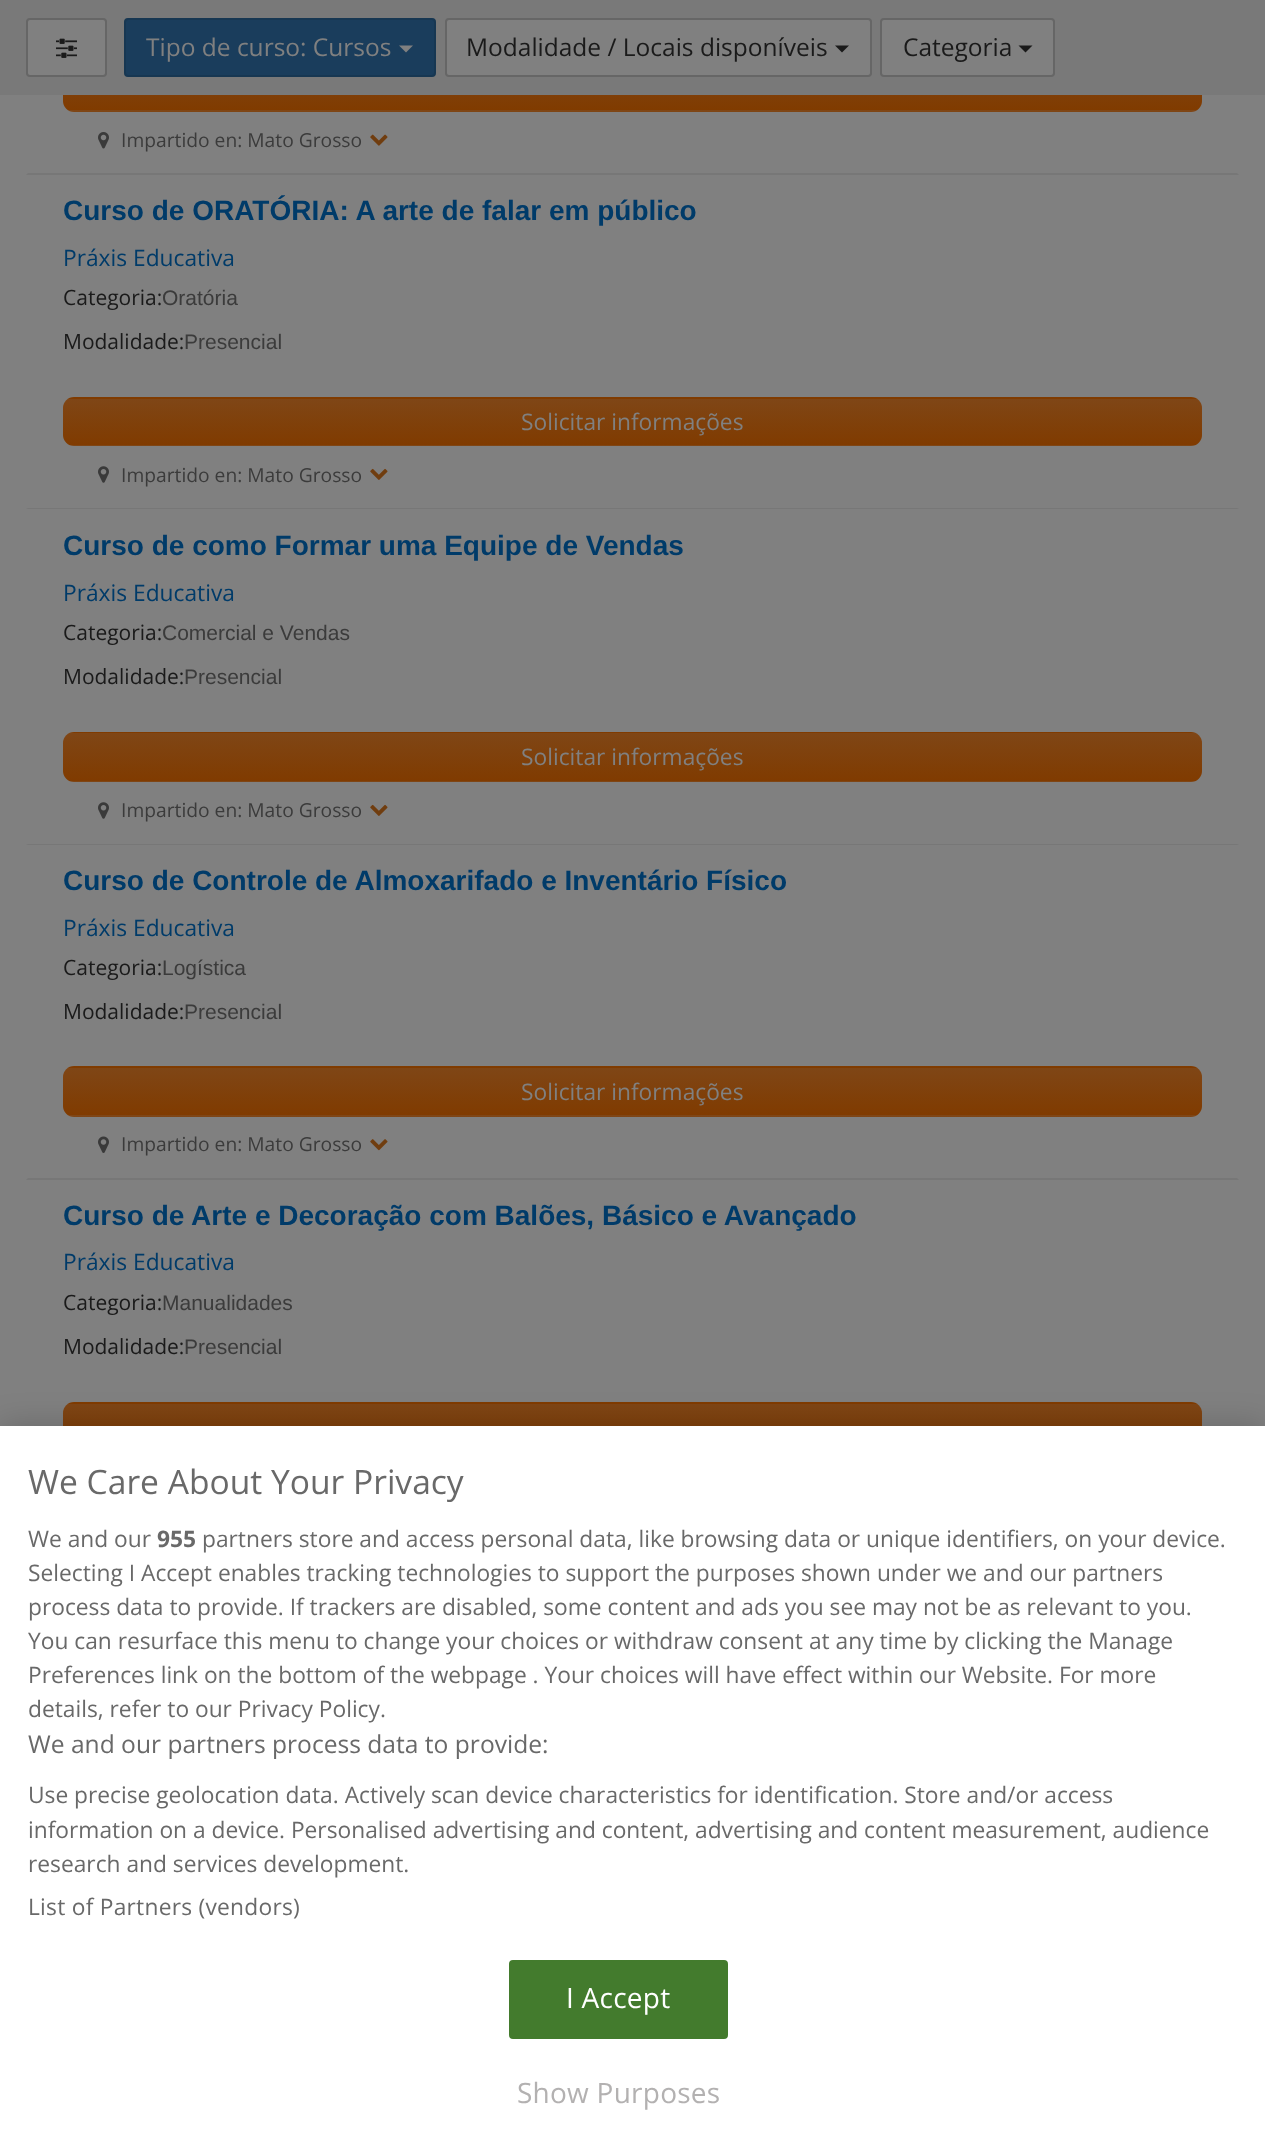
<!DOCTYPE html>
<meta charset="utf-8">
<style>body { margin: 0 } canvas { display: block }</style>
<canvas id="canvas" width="1265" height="2149"></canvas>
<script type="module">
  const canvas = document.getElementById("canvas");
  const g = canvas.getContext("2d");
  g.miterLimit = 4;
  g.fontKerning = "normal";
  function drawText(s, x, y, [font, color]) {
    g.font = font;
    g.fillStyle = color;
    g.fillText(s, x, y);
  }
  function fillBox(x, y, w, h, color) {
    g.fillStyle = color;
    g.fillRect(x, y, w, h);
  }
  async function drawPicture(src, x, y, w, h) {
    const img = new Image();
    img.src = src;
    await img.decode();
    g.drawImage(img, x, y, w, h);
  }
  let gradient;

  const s1 = ["24.5px Open Sans", "#808080"];
  const s2 = ["24.5px Open Sans", "#1A1A1A"];
  const s3 = ["19.25px Open Sans", "#3B3B3B"];
  const s4 = ["bold 28px Liberation Sans", "#003B69"];
  const s5 = ["22.75px Open Sans", "#003B69"];
  const s6 = ["21px Open Sans", "#1A1A1A"];
  const s7 = ["21px Liberation Sans", "#3B3B3B"];
  const s8 = ["22.75px Open Sans", "#808080"];
  const s9 = ["33.6px Open Sans", "#696969"];
  const s10 = ["22.75px Open Sans", "#696969"];
  const s11 = ["bold 22.75px Open Sans", "#696969"];
  const s12 = ["24.6px Open Sans", "#696969"];
  const s13 = ["28px Open Sans", "#FFFFFF"];
  const s14 = ["28px Open Sans", "#B3B1B1"];

  fillBox(0, 0, 1265, 2149, "#808080");
  fillBox(0, 0, 1265, 95, "#797979");
  g.fillStyle = "#808080";
  g.beginPath();
  g.roundRect(27, 19, 79, 57, 3);
  g.fill();
  g.strokeStyle = "#666666";
  g.lineWidth = 2;
  g.stroke();
  await drawPicture("pic1.png", 56, 38, 21, 20);
  g.fillStyle = "#1A3D5C";
  g.beginPath();
  g.roundRect(125, 19, 310, 57, 3);
  g.fill();
  g.strokeStyle = "#173752";
  g.stroke();
  drawText("Tipo de curso: Cursos", 146, 56, s1);
  g.beginPath();
  g.moveTo(399, 45.5);
  g.lineTo(413, 45.5);
  g.lineTo(406, 52.5);
  g.closePath();
  g.fill();
  g.beginPath();
  g.roundRect(446, 19, 425, 57, 3);
  g.fill();
  g.strokeStyle = "#666666";
  g.stroke();
  drawText("Modalidade / Locais disponíveis", 466, 56, s2);
  g.beginPath();
  g.moveTo(835, 45.5);
  g.lineTo(849, 45.5);
  g.lineTo(842, 52.5);
  g.closePath();
  g.fill();
  g.fillStyle = "#808080";
  g.beginPath();
  g.roundRect(881, 19, 173, 57, 3);
  g.fill();
  g.stroke();
  drawText("Categoria", 903, 56, s2);
  g.beginPath();
  g.moveTo(1018.5, 45.5);
  g.lineTo(1032.5, 45.5);
  g.lineTo(1025.5, 52.5);
  g.closePath();
  g.fill();
  g.fillStyle = "#777777";
  g.beginPath();
  g.moveTo(1239, 175);
  g.lineTo(26, 175);
  g.lineTo(28, 173);
  g.lineTo(1237, 173);
  g.closePath();
  g.fill();
  g.save();
  g.beginPath();
  g.roundRect(63, 61, 1139, 51, 11);
  g.clip();
  gradient = g.createLinearGradient(633, 63, 633, 110);
  gradient.addColorStop(0, "#7F4616");
  gradient.addColorStop(1, "#803B00");
  g.fillStyle = gradient;
  g.fillRect(63, 95, 1139, 15);
  gradient = g.createLinearGradient(633, 110, 633, 158);
  gradient.addColorStop(0, "#7F4616");
  gradient.addColorStop(1, "#803B00");
  g.fillStyle = gradient;
  g.fillRect(63, 110, 1139, 2);
  g.restore();
  await drawPicture("pic2.png", 98, 132, 11, 17);
  drawText("Impartido en: Mato Grosso", 121, 147, s3);
  await drawPicture("pic3.png", 370, 134, 18, 12);
  g.fillStyle = "#777777";
  g.beginPath();
  g.moveTo(1239, 509);
  g.lineTo(26, 509);
  g.lineTo(28, 508);
  g.lineTo(1237, 508);
  g.closePath();
  g.fill();
  drawText("Curso de ORATÓRIA: A arte de falar em público", 63, 220, s4);
  drawText("Práxis Educativa", 63, 266, s5);
  drawText("Categoria:", 63, 305, s6);
  drawText("Oratória", 162, 305, s7);
  drawText("Modalidade:", 63, 349, s6);
  drawText("Presencial", 184, 349, s7);
  g.save();
  g.beginPath();
  g.roundRect(63, 397, 1139, 49, 11);
  g.clip();
  gradient = g.createLinearGradient(633, 353, 633, 399);
  gradient.addColorStop(0, "#7F4616");
  gradient.addColorStop(1, "#803B00");
  g.fillStyle = gradient;
  g.fillRect(63, 397, 1139, 2);
  gradient = g.createLinearGradient(633, 399, 633, 445);
  gradient.addColorStop(0, "#7F4616");
  gradient.addColorStop(1, "#803B00");
  g.fillStyle = gradient;
  g.fillRect(63, 399, 1139, 46);
  gradient = g.createLinearGradient(633, 444, 633, 490);
  gradient.addColorStop(0, "#7F4616");
  gradient.addColorStop(1, "#803B00");
  g.fillStyle = gradient;
  g.fillRect(63, 445, 1139, 1);
  g.restore();
  drawText("Solicitar informações", 521, 430, s8);
  await drawPicture("pic4.png", 98, 466, 11, 17);
  drawText("Impartido en: Mato Grosso", 121, 482, s3);
  await drawPicture("pic5.png", 370, 468, 18, 12);
  g.fillStyle = "#777777";
  g.beginPath();
  g.moveTo(1239, 845);
  g.lineTo(26, 845);
  g.lineTo(28, 844);
  g.lineTo(1237, 844);
  g.closePath();
  g.fill();
  drawText("Curso de como Formar uma Equipe de Vendas", 63, 555, s4);
  drawText("Práxis Educativa", 63, 601, s5);
  drawText("Categoria:", 63, 640, s6);
  drawText("Comercial e Vendas", 162, 640, s7);
  drawText("Modalidade:", 63, 684, s6);
  drawText("Presencial", 184, 684, s7);
  g.save();
  g.beginPath();
  g.roundRect(63, 732, 1139, 50, 11);
  g.clip();
  gradient = g.createLinearGradient(633, 686, 633, 733);
  gradient.addColorStop(0, "#7F4616");
  gradient.addColorStop(1, "#803B00");
  g.fillStyle = gradient;
  g.fillRect(63, 732, 1139, 1);
  gradient = g.createLinearGradient(633, 733, 633, 781);
  gradient.addColorStop(0, "#7F4616");
  gradient.addColorStop(1, "#803B00");
  g.fillStyle = gradient;
  g.fillRect(63, 733, 1139, 48);
  gradient = g.createLinearGradient(633, 780, 633, 828);
  gradient.addColorStop(0, "#7F4616");
  gradient.addColorStop(1, "#803B00");
  g.fillStyle = gradient;
  g.fillRect(63, 781, 1139, 1);
  g.restore();
  drawText("Solicitar informações", 521, 765, s8);
  await drawPicture("pic4.png", 98, 802, 11, 17);
  drawText("Impartido en: Mato Grosso", 121, 817, s3);
  await drawPicture("pic5.png", 370, 804, 18, 12);
  g.fillStyle = "#777777";
  g.beginPath();
  g.moveTo(1239, 1180);
  g.lineTo(26, 1180);
  g.lineTo(28, 1178);
  g.lineTo(1237, 1178);
  g.closePath();
  g.fill();
  drawText("Curso de Controle de Almoxarifado e Inventário Físico", 63, 890, s4);
  drawText("Práxis Educativa", 63, 936, s5);
  drawText("Categoria:", 63, 975, s6);
  drawText("Logística", 162, 975, s7);
  drawText("Modalidade:", 63, 1019, s6);
  drawText("Presencial", 184, 1019, s7);
  g.save();
  g.beginPath();
  g.roundRect(63, 1066, 1139, 51, 11);
  g.clip();
  gradient = g.createLinearGradient(633, 1020, 633, 1068);
  gradient.addColorStop(0, "#7F4616");
  gradient.addColorStop(1, "#803B00");
  g.fillStyle = gradient;
  g.fillRect(63, 1066, 1139, 2);
  gradient = g.createLinearGradient(633, 1068, 633, 1115);
  gradient.addColorStop(0, "#7F4616");
  gradient.addColorStop(1, "#803B00");
  g.fillStyle = gradient;
  g.fillRect(63, 1068, 1139, 47);
  gradient = g.createLinearGradient(633, 1115, 633, 1162);
  gradient.addColorStop(0, "#7F4616");
  gradient.addColorStop(1, "#803B00");
  g.fillStyle = gradient;
  g.fillRect(63, 1115, 1139, 2);
  g.restore();
  drawText("Solicitar informações", 521, 1100, s8);
  await drawPicture("pic6.png", 98, 1136, 11, 17);
  drawText("Impartido en: Mato Grosso", 121, 1151, s3);
  await drawPicture("pic7.png", 370, 1139, 18, 12);
  drawText("Curso de Arte e Decoração com Balões, Básico e Avançado", 63, 1225, s4);
  drawText("Práxis Educativa", 63, 1270, s5);
  drawText("Categoria:", 63, 1310, s6);
  drawText("Manualidades", 162, 1310, s7);
  drawText("Modalidade:", 63, 1354, s6);
  drawText("Presencial", 184, 1354, s7);
  g.save();
  g.beginPath();
  g.roundRect(63, 1402, 1139, 49, 11);
  g.clip();
  gradient = g.createLinearGradient(633, 1358, 633, 1404);
  gradient.addColorStop(0, "#7F4616");
  gradient.addColorStop(1, "#803B00");
  g.fillStyle = gradient;
  g.fillRect(63, 1402, 1139, 2);
  gradient = g.createLinearGradient(633, 1404, 633, 1449);
  gradient.addColorStop(0, "#7F4616");
  gradient.addColorStop(1, "#803B00");
  g.fillStyle = gradient;
  g.fillRect(63, 1404, 1139, 22);
  g.restore();
  g.fillStyle = "rgba(0, 0, 0, 0.2)";
  g.filter = "blur(16px)";
  g.beginPath();
  g.rect(0, 1426, 1265, 723);
  g.fill();
  g.filter = "none";
  fillBox(0, 1426, 1265, 723, "#FFFFFF");
  drawText("We Care About Your Privacy", 28, 1494, s9);
  drawText("We and our", 28, 1547, s10);
  drawText("955", 157, 1547, s11);
  drawText("partners store and access personal data, like browsing data or unique identifiers, on your device.", 202, 1547, s10);
  drawText("Selecting I Accept enables tracking technologies to support the purposes shown under we and our partners", 28, 1581, s10);
  drawText("process data to provide. If trackers are disabled, some content and ads you see may not be as relevant to you.", 28, 1615, s10);
  drawText("You can resurface this menu to change your choices or withdraw consent at any time by clicking the Manage", 28, 1649, s10);
  drawText("Preferences link on the bottom of the webpage . Your choices will have effect within our Website. For more", 28, 1683, s10);
  drawText("details, refer to our Privacy Policy.", 28, 1717, s10);
  drawText("We and our partners process data to provide:", 28, 1753, s12);
  drawText("Use precise geolocation data. Actively scan device characteristics for identification. Store and/or access", 28, 1803, s10);
  drawText("information on a device. Personalised advertising and content, advertising and content measurement, audience", 28, 1838, s10);
  drawText("research and services development.", 28, 1872, s10);
  g.letterSpacing = "0.25px";
  drawText("List of Partners (vendors)", 28, 1915, s10);
  g.fillStyle = "#437B2D";
  g.beginPath();
  g.roundRect(510, 1961, 217, 77, 3);
  g.fill();
  g.strokeStyle = "#437B2D";
  g.stroke();
  drawText("I Accept", 566, 2008, s13);
  drawText("Show Purposes", 517, 2103, s14);
</script>
